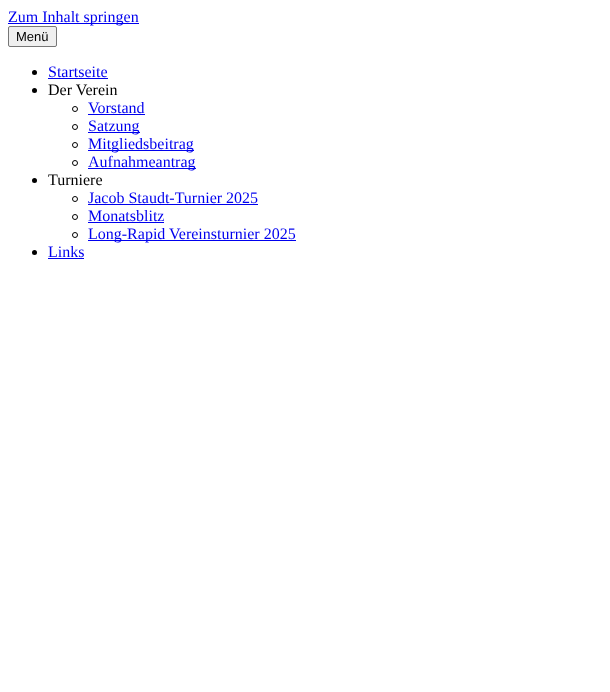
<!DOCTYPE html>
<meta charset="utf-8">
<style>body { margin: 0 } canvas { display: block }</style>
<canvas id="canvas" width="610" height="692"></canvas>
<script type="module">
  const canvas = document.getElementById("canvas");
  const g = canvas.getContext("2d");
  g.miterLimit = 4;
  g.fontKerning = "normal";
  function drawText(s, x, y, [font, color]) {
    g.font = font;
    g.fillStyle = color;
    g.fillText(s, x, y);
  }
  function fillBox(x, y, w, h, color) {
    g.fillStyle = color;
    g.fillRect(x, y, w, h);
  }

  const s1 = ["16px Liberation Serif", "#0000EE"];
  const s2 = ["13px Liberation Sans", "#000000"];
  const s3 = ["16px Liberation Serif", "#000000"];

  fillBox(0, 0, 610, 692, "#FFFFFF");
  fillBox(8, 23, 131, 1, "#0000EE");
  drawText("Zum Inhalt springen", 8, 22, s1);
  g.fillStyle = "#EFEFEF";
  g.beginPath();
  g.roundRect(8.5, 26.5, 48, 20, 1.5);
  g.fill();
  g.strokeStyle = "#767676";
  g.stroke();
  drawText("Menü", 16, 41, s2);
  g.beginPath();
  g.arc(34.5, 72.5, 2.5, 0, Math.PI * 2);
  g.fill();
  drawText("Startseite", 48, 77, s1);
  fillBox(48, 78, 60, 1, "#0000EE");
  g.fillStyle = "#000000";
  g.beginPath();
  g.arc(34.5, 90.5, 2.5, 0, Math.PI * 2);
  g.fill();
  drawText("Der Verein", 48, 95, s3);
  g.beginPath();
  g.arc(75, 109, 2.5, 0, Math.PI * 2);
  g.strokeStyle = "#000000";
  g.stroke();
  drawText("Vorstand", 88, 113, s1);
  fillBox(88, 114, 57, 1, "#0000EE");
  g.beginPath();
  g.arc(75, 127, 2.5, 0, Math.PI * 2);
  g.stroke();
  fillBox(88, 132, 52, 1, "#0000EE");
  drawText("Satzung", 88, 131, s1);
  g.beginPath();
  g.arc(75, 145, 2.5, 0, Math.PI * 2);
  g.stroke();
  fillBox(88, 150, 106, 1, "#0000EE");
  drawText("Mitgliedsbeitrag", 88, 149, s1);
  g.beginPath();
  g.arc(75, 163, 2.5, 0, Math.PI * 2);
  g.stroke();
  fillBox(88, 168, 108, 1, "#0000EE");
  drawText("Aufnahmeantrag", 88, 167, s1);
  g.fillStyle = "#000000";
  g.beginPath();
  g.arc(34.5, 180.5, 2.5, 0, Math.PI * 2);
  g.fill();
  drawText("Turniere", 48, 185, s3);
  g.beginPath();
  g.arc(75, 199, 2.5, 0, Math.PI * 2);
  g.stroke();
  drawText("Jacob Staudt-Turnier 2025", 88, 203, s1);
  fillBox(88, 204, 170, 1, "#0000EE");
  g.beginPath();
  g.arc(75, 217, 2.5, 0, Math.PI * 2);
  g.stroke();
  drawText("Monatsblitz", 88, 221, s1);
  fillBox(88, 222, 76, 1, "#0000EE");
  g.beginPath();
  g.arc(75, 235, 2.5, 0, Math.PI * 2);
  g.stroke();
  fillBox(88, 240, 208, 1, "#0000EE");
  drawText("Long-Rapid Vereinsturnier 2025", 88, 239, s1);
  g.fillStyle = "#000000";
  g.beginPath();
  g.arc(34.5, 252.5, 2.5, 0, Math.PI * 2);
  g.fill();
  drawText("Links", 48, 257, s1);
  fillBox(48, 258, 36, 1, "#0000EE");
</script>
